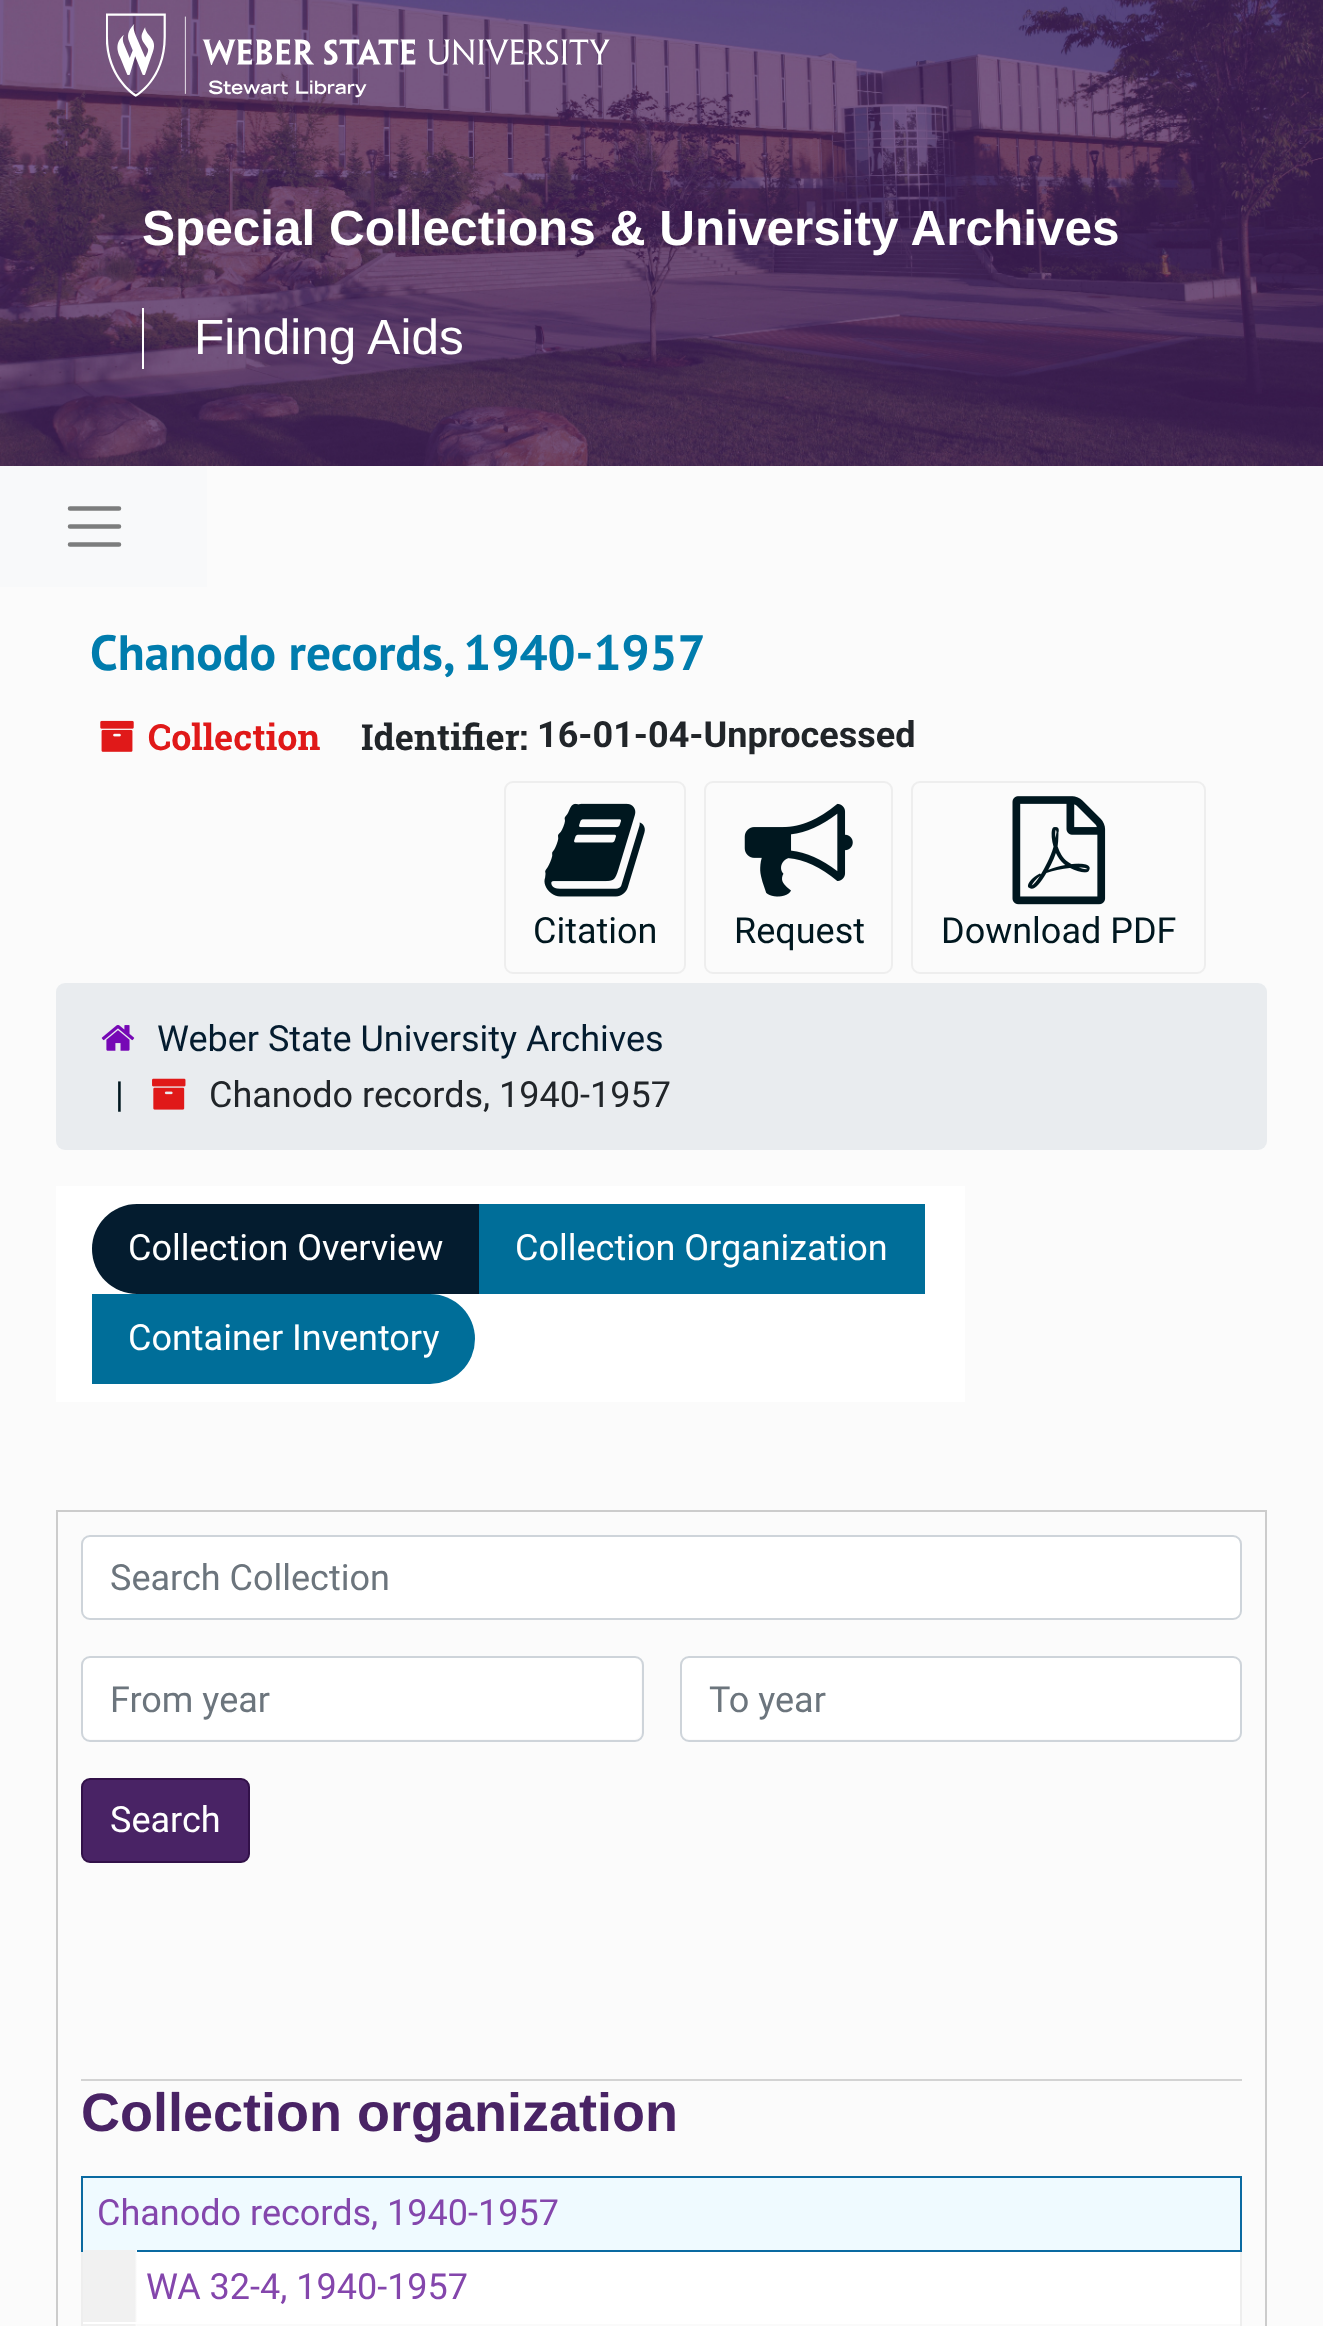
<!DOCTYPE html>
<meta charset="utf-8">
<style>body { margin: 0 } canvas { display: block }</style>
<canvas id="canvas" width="1323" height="2326"></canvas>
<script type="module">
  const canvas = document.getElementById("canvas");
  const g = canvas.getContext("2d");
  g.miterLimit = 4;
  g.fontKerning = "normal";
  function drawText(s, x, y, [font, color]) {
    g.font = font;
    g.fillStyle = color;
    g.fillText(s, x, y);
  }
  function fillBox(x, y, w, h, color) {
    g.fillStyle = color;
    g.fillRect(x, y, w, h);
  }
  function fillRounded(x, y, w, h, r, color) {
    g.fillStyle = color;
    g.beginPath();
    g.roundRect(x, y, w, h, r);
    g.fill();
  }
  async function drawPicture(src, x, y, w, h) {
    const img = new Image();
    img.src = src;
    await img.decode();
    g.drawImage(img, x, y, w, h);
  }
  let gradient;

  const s1 = ["bold 49.5px Liberation Sans", "#FFFFFF"];
  const s2 = ["49.5px Liberation Sans", "#FFFFFF"];
  const s3 = ["bold 49.5px PT Sans", "#007CAD"];
  const s4 = ["bold 36px Roboto Slab", "#E01919"];
  const s5 = ["bold 36px Roboto Slab", "#212529"];
  const s6 = ["bold 36px Roboto", "#212529"];
  const s7 = ["36px Roboto", "#00171F"];
  const s8 = ["36px Roboto", "#041C2F"];
  const s9 = ["36px Roboto", "#212529"];
  const s10 = ["36px Roboto", "#FFFFFF"];
  const s11 = ["36px Roboto", "#6C757D"];
  const s12 = ["bold 54px Liberation Sans", "#492365"];
  const s13 = ["36px Roboto", "#8446AC"];

  fillBox(0, 0, 1323, 2326, "#FBFBFB");
  await drawPicture("pic1.png", 0, 0, 1323, 466);
  await drawPicture("pic2.png", 106, 13, 504, 85);
  drawText("Special Collections & University Archives", 142, 245, s1);
  fillBox(142, 308, 2, 61, "#FFFFFF");
  drawText("Finding Aids", 194, 354, s2);
  fillBox(0, 466, 207, 121, "#F8F9FA");
  g.beginPath();
  g.moveTo(70, 508.5);
  g.lineTo(119, 508.5);
  g.moveTo(70, 526.5);
  g.lineTo(119, 526.5);
  g.moveTo(70, 544.5);
  g.lineTo(119, 544.5);
  g.strokeStyle = "#7C7D7D";
  g.lineWidth = 4.5;
  g.lineCap = "round";
  g.stroke();
  drawText("Chanodo records, 1940-1957", 90, 670, s3);
  await drawPicture("pic3.png", 100, 720, 34, 32);
  drawText("Collection", 148, 750, s4);
  drawText("Identifier:", 361, 750, s5);
  drawText("16-01-04-Unprocessed", 537, 747, s6);
  g.beginPath();
  g.roundRect(505, 782, 180, 191, 8);
  g.strokeStyle = "#EEEEEE";
  g.lineWidth = 2;
  g.stroke();
  await drawPicture("pic4.png", 544, 803, 101, 94);
  drawText("Citation", 533, 943, s7);
  g.beginPath();
  g.roundRect(705, 782, 187, 191, 8);
  g.stroke();
  await drawPicture("pic5.png", 744, 803, 109, 94);
  drawText("Request", 734, 943, s7);
  g.beginPath();
  g.roundRect(912, 782, 293, 191, 8);
  g.stroke();
  await drawPicture("pic6.png", 1012, 796, 94, 109);
  drawText("Download PDF", 941, 943, s7);
  fillRounded(56, 983, 1211, 167, 9, "#E9ECEF");
  await drawPicture("pic7.png", 101, 1025, 34, 26);
  drawText("Weber State University Archives", 157, 1051, s8);
  drawText("|", 115, 1107, s7);
  await drawPicture("pic8.png", 152, 1078, 34, 32);
  drawText("Chanodo records, 1940-1957", 209, 1107, s9);
  fillBox(56, 1186, 909, 216, "#FFFFFF");
  g.fillStyle = "#041C2F";
  g.beginPath();
  g.roundRect(92, 1204, 387, 90, [45, 0, 0, 45]);
  g.fill();
  drawText("Collection Overview", 128, 1260, s10);
  fillBox(479, 1204, 446, 90, "#006E99");
  drawText("Collection Organization", 515, 1260, s10);
  g.fillStyle = "#006E99";
  g.beginPath();
  g.roundRect(92, 1294, 383, 90, [0, 45, 45, 0]);
  g.fill();
  drawText("Container Inventory", 128, 1350, s10);
  g.strokeStyle = "#CCCCCC";
  g.strokeRect(57, 1511, 1209, 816);
  fillBox(81, 2079, 1161, 2, "#D3D3D3");
  g.fillStyle = "#FFFFFF";
  g.beginPath();
  g.roundRect(82, 1536, 1159, 83, 8);
  g.fill();
  g.strokeStyle = "#CED4DA";
  g.stroke();
  drawText("Search Collection", 110, 1590, s11);
  fillRounded(83, 1658, 558, 81, 7, "#FFFFFF");
  g.beginPath();
  g.roundRect(82, 1657, 561, 84, 8);
  g.stroke();
  drawText("From year", 110, 1712, s11);
  fillRounded(682, 1658, 558, 81, 7, "#FFFFFF");
  g.beginPath();
  g.roundRect(681, 1657, 560, 84, 8);
  g.stroke();
  drawText("To year", 709, 1712, s11);
  g.fillStyle = "#492365";
  g.beginPath();
  g.roundRect(82, 1779, 167, 83, 8);
  g.fill();
  g.strokeStyle = "#321149";
  g.stroke();
  drawText("Search", 110, 1832, s10);
  drawText("Collection organization", 81, 2131, s12);
  fillBox(81, 2252, 1161, 74, "#EEEEEE");
  g.strokeStyle = "#0A6AA1";
  g.strokeRect(82, 2177, 1159, 74);
  fillBox(83, 2178, 1157, 72, "#EFFAFF");
  drawText("Chanodo records, 1940-1957", 97, 2225, s13);
  fillBox(83, 2252, 1157, 72, "#FFFFFF");
  gradient = g.createLinearGradient(83, 2286, 191, 2286);
  gradient.addColorStop(0, "#F1F1F1");
  gradient.addColorStop(0.48, "#F1F1F1");
  gradient.addColorStop(0.5, "#FFFFFF");
  gradient.addColorStop(0.5, "#F1F1F1");
  gradient.addColorStop(0.98, "#F1F1F1");
  gradient.addColorStop(1, "#FFFFFF");
  g.fillStyle = gradient;
  g.fillRect(83, 2250, 54, 72);
  drawText("WA 32-4, 1940-1957", 146, 2299, s13);
  fillBox(137, 2324, 1103, 2, "#FAFAFA");
  gradient = g.createLinearGradient(83, 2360, 191, 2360);
  gradient.addColorStop(0, "#F1F1F1");
  gradient.addColorStop(0.48, "#F1F1F1");
  gradient.addColorStop(0.5, "#FFFFFF");
  gradient.addColorStop(0.5, "#F1F1F1");
  gradient.addColorStop(0.98, "#F1F1F1");
  gradient.addColorStop(1, "#FFFFFF");
  g.fillStyle = gradient;
  g.fillRect(83, 2324, 54, 2);
</script>
